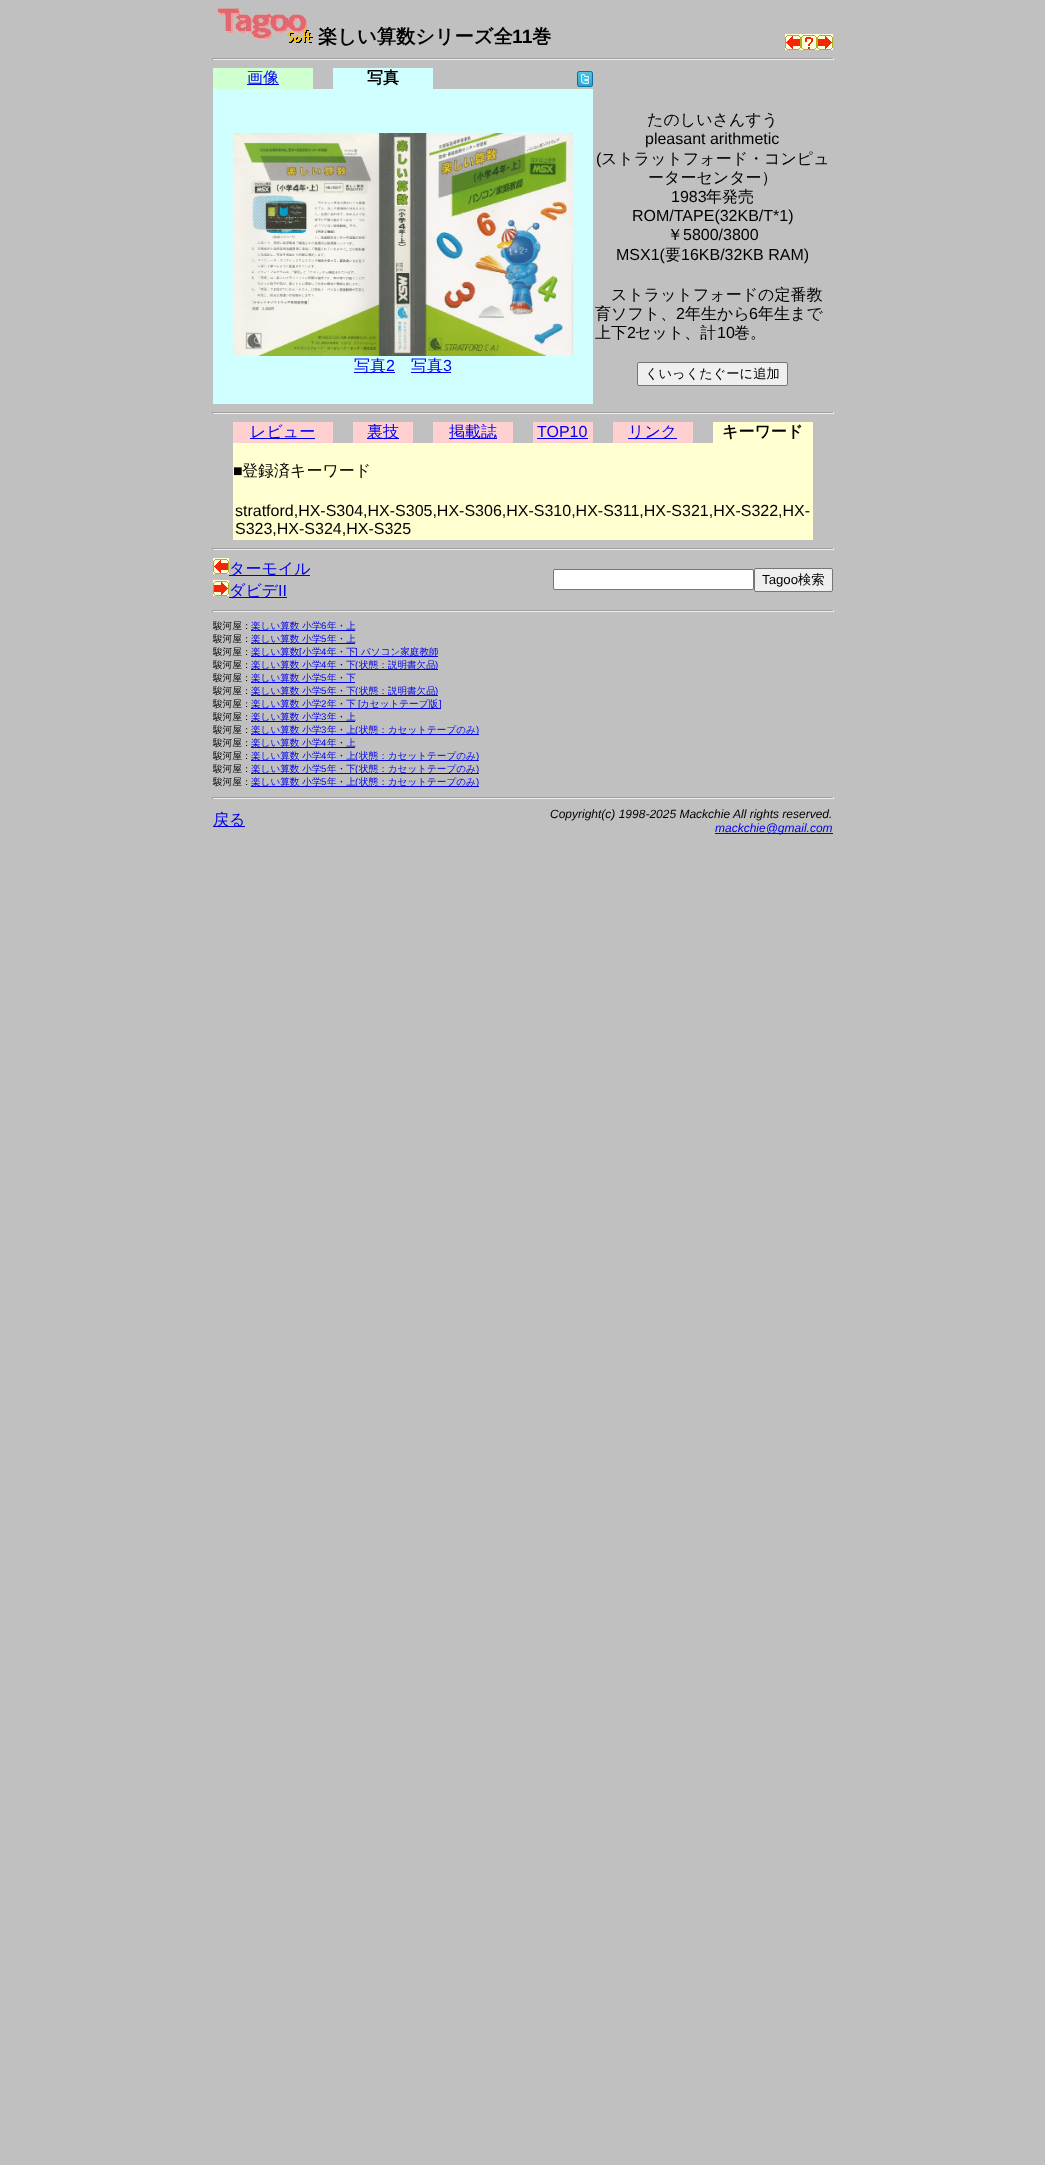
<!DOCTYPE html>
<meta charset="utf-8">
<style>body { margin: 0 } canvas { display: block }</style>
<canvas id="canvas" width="1045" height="2165"></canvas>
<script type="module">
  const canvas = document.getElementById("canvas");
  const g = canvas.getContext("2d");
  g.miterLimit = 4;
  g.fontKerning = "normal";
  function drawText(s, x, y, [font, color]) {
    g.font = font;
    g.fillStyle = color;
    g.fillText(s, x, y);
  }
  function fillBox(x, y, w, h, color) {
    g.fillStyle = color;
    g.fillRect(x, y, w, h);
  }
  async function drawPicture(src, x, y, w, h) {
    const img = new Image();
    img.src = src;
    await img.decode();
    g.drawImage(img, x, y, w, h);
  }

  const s1 = ["bold 19.25px WenQuanYi Zen Hei", "#000000"];
  const s2 = ["bold 19.25px Liberation Sans", "#000000"];
  const s3 = ["500 16px WenQuanYi Zen Hei", "#0000EE"];
  const s4 = ["bold 16px WenQuanYi Zen Hei", "#000000"];
  const s5 = ["16px Liberation Sans", "#0000EE"];
  const s6 = ["500 16px WenQuanYi Zen Hei", "#000000"];
  const s7 = ["16px Liberation Sans", "#000000"];
  const s8 = ["500 13.25px WenQuanYi Zen Hei", "#000000"];
  const s9 = ["13.25px Liberation Sans", "#000000"];
  const s10 = ["500 9.6px WenQuanYi Zen Hei", "#000000"];
  const s11 = ["500 9.6px WenQuanYi Zen Hei", "#0000EE"];
  const s12 = ["9.6px Liberation Sans", "#0000EE"];
  const s13 = ["italic 12px Liberation Sans", "#000000"];
  const s14 = ["italic 12px Liberation Sans", "#0000EE"];

  fillBox(0, 0, 1045, 2165, "#C0C0C0");
  await drawPicture("pic1.png", 218, 8, 95, 35);
  drawText("楽しい算数シリーズ全", 318, 43, s1);
  drawText("11", 512, 43, s2);
  drawText("巻", 532, 43, s1);
  await drawPicture("pic2.png", 785, 34, 16, 16);
  await drawPicture("pic3.png", 801, 34, 16, 16);
  await drawPicture("pic4.png", 817, 34, 16, 16);
  fillBox(212, 58, 622, 1, "#9F9F9F");
  fillBox(833, 58, 1, 2, "#EEEEEE");
  fillBox(212, 59, 622, 1, "#EEEEEE");
  fillBox(212, 58, 1, 2, "#9F9F9F");
  fillBox(213, 68, 100, 21, "#D0FFD0");
  fillBox(247, 84, 32, 1, "#0000EE");
  drawText("画像", 247, 83, s3);
  fillBox(333, 68, 100, 21, "#D0FFFF");
  drawText("写真", 367, 83, s4);
  await drawPicture("pic5.png", 577, 71, 16, 16);
  fillBox(213, 89, 380, 315, "#D0FFFF");
  await drawPicture("pic6.png", 233, 133, 340, 223);
  fillBox(354, 372, 41, 1, "#0000EE");
  drawText("写真", 354, 371, s3);
  drawText("2", 386, 371, s5);
  fillBox(411, 372, 40, 1, "#0000EE");
  drawText("写真", 411, 371, s3);
  drawText("3", 443, 371, s5);
  drawText("たのしいさんすう", 647, 125, s6);
  drawText("pleasant arithmetic", 645, 144, s7);
  drawText("(", 596, 164, s7);
  drawText("ストラットフォード・コンピュ", 601, 164, s6);
  drawText("ーターセンター）", 648, 183, s6);
  drawText("1983", 671, 202, s7);
  drawText("年発売", 706, 202, s6);
  drawText("ROM/TAPE(32KB/T*1)", 632, 221, s7);
  drawText("￥", 667, 240, s6);
  drawText("5800/3800", 683, 240, s7);
  drawText("MSX1(", 616, 260, s7);
  drawText("要", 665, 260, s6);
  drawText("16KB/32KB RAM)", 681, 260, s7);
  drawText("ストラットフォードの定番教", 611, 300, s6);
  drawText("育ソフト、", 595, 319, s6);
  drawText("2", 676, 319, s7);
  drawText("年生から", 685, 319, s6);
  drawText("6", 749, 319, s7);
  drawText("年生まで", 758, 319, s6);
  drawText("上下", 595, 338, s6);
  drawText("2", 627, 338, s7);
  drawText("セット、計", 635, 338, s6);
  drawText("10", 717, 338, s7);
  drawText("巻。", 734, 338, s6);
  g.fillStyle = "#EFEFEF";
  g.beginPath();
  g.roundRect(637.5, 362.5, 150, 23, 1.5);
  g.fill();
  g.strokeStyle = "#767676";
  g.stroke();
  drawText("くいっくたぐーに追加", 645, 378, s8);
  fillBox(212, 412, 622, 1, "#9F9F9F");
  fillBox(833, 412, 1, 2, "#EEEEEE");
  fillBox(212, 413, 622, 1, "#EEEEEE");
  fillBox(212, 412, 1, 2, "#9F9F9F");
  fillBox(233, 422, 100, 21, "#FFD0D0");
  fillBox(250, 438, 65, 1, "#0000EE");
  drawText("レビュー", 250, 437, s3);
  fillBox(353, 422, 60, 21, "#FFD0D0");
  fillBox(367, 438, 32, 1, "#0000EE");
  drawText("裏技", 367, 437, s3);
  fillBox(433, 422, 80, 21, "#FFD0D0");
  fillBox(449, 438, 48, 1, "#0000EE");
  drawText("掲載誌", 449, 437, s3);
  fillBox(533, 422, 60, 21, "#FFD0D0");
  drawText("TOP10", 537, 437, s5);
  fillBox(537, 438, 51, 1, "#0000EE");
  fillBox(613, 422, 80, 21, "#FFD0D0");
  fillBox(628, 438, 49, 1, "#0000EE");
  drawText("リンク", 628, 437, s3);
  fillBox(713, 422, 100, 21, "#FFFFD0");
  drawText("キーワード", 722, 437, s4);
  fillBox(233, 443, 580, 97, "#FFFFD0");
  drawText("■", 233, 476, s7);
  drawText("登録済キーワード", 242, 476, s6);
  drawText("stratford,HX-S304,HX-S305,HX-S306,HX-S310,HX-S311,HX-S321,HX-S322,HX-", 235, 516, s7);
  drawText("S323,HX-S324,HX-S325", 235, 534, s7);
  fillBox(212, 548, 622, 1, "#9F9F9F");
  fillBox(833, 548, 1, 2, "#EEEEEE");
  fillBox(212, 549, 622, 1, "#EEEEEE");
  fillBox(212, 548, 1, 2, "#9F9F9F");
  await drawPicture("pic2.png", 213, 558, 16, 16);
  fillBox(229, 575, 81, 1, "#0000EE");
  drawText("ターモイル", 229, 574, s3);
  await drawPicture("pic4.png", 213, 580, 16, 16);
  fillBox(229, 597, 58, 1, "#0000EE");
  drawText("ダビデ", 229, 596, s3);
  drawText("II", 278, 596, s5);
  g.fillStyle = "#FFFFFF";
  g.beginPath();
  g.roundRect(553.5, 569.5, 200, 20, 1.5);
  g.fill();
  g.stroke();
  g.fillStyle = "#EFEFEF";
  g.beginPath();
  g.roundRect(754.5, 568.5, 78, 23, 1.5);
  g.fill();
  g.stroke();
  drawText("Tagoo", 762, 584, s9);
  drawText("検索", 798, 584, s8);
  fillBox(212, 610, 622, 1, "#9F9F9F");
  fillBox(833, 610, 1, 2, "#EEEEEE");
  fillBox(212, 611, 622, 1, "#EEEEEE");
  fillBox(212, 610, 1, 2, "#9F9F9F");
  drawText("駿河屋：", 213, 629, s10);
  fillBox(251, 630, 104, 1, "#0000EE");
  drawText("楽しい算数 小学", 251, 629, s11);
  drawText("6", 321, 629, s12);
  drawText("年・上", 327, 629, s11);
  drawText("駿河屋：", 213, 642, s10);
  fillBox(251, 643, 104, 1, "#0000EE");
  drawText("楽しい算数 小学", 251, 642, s11);
  drawText("5", 321, 642, s12);
  drawText("年・上", 327, 642, s11);
  drawText("駿河屋：", 213, 655, s10);
  fillBox(251, 656, 187, 1, "#0000EE");
  drawText("楽しい算数 小学", 251, 655, s11);
  drawText("4", 321, 655, s12);
  drawText("年・下", 327, 655, s11);
  drawText("パソコン家庭教師", 361, 655, s11);
  drawText("[", 299, 655, s12);
  drawText("]", 355, 655, s12);
  drawText("駿河屋：", 213, 668, s10);
  fillBox(251, 669, 187, 1, "#0000EE");
  drawText("楽しい算数 小学", 251, 668, s11);
  drawText("4", 321, 668, s12);
  drawText("年・下", 327, 668, s11);
  drawText("(", 355, 668, s12);
  drawText("状態：説明書欠品", 359, 668, s11);
  drawText(")", 435, 668, s12);
  drawText("駿河屋：", 213, 681, s10);
  fillBox(251, 682, 104, 1, "#0000EE");
  drawText("楽しい算数 小学", 251, 681, s11);
  drawText("5", 321, 681, s12);
  drawText("年・下", 327, 681, s11);
  drawText("駿河屋：", 213, 694, s10);
  fillBox(251, 695, 187, 1, "#0000EE");
  drawText("楽しい算数 小学", 251, 694, s11);
  drawText("5", 321, 694, s12);
  drawText("年・下", 327, 694, s11);
  drawText("(", 355, 694, s12);
  drawText("状態：説明書欠品", 359, 694, s11);
  drawText(")", 435, 694, s12);
  drawText("駿河屋：", 213, 707, s10);
  fillBox(251, 708, 190, 1, "#0000EE");
  drawText("楽しい算数 小学", 251, 707, s11);
  drawText("2", 321, 707, s12);
  drawText("年・下", 327, 707, s11);
  drawText("[", 358, 707, s12);
  drawText("カセットテープ版", 360, 707, s11);
  drawText("]", 439, 707, s12);
  drawText("駿河屋：", 213, 720, s10);
  fillBox(251, 721, 104, 1, "#0000EE");
  drawText("楽しい算数 小学", 251, 720, s11);
  drawText("3", 321, 720, s12);
  drawText("年・上", 327, 720, s11);
  drawText("駿河屋：", 213, 733, s10);
  fillBox(251, 734, 228, 1, "#0000EE");
  drawText("楽しい算数 小学", 251, 733, s11);
  drawText("3", 321, 733, s12);
  drawText("年・上", 327, 733, s11);
  drawText("(", 355, 733, s12);
  drawText("状態：カセットテープのみ", 359, 733, s11);
  drawText(")", 476, 733, s12);
  drawText("駿河屋：", 213, 746, s10);
  fillBox(251, 747, 104, 1, "#0000EE");
  drawText("楽しい算数 小学", 251, 746, s11);
  drawText("4", 321, 746, s12);
  drawText("年・上", 327, 746, s11);
  drawText("駿河屋：", 213, 759, s10);
  fillBox(251, 760, 228, 1, "#0000EE");
  drawText("楽しい算数 小学", 251, 759, s11);
  drawText("4", 321, 759, s12);
  drawText("年・上", 327, 759, s11);
  drawText("(", 355, 759, s12);
  drawText("状態：カセットテープのみ", 359, 759, s11);
  drawText(")", 476, 759, s12);
  drawText("駿河屋：", 213, 772, s10);
  fillBox(251, 773, 228, 1, "#0000EE");
  drawText("楽しい算数 小学", 251, 772, s11);
  drawText("5", 321, 772, s12);
  drawText("年・下", 327, 772, s11);
  drawText("(", 355, 772, s12);
  drawText("状態：カセットテープのみ", 359, 772, s11);
  drawText(")", 476, 772, s12);
  drawText("駿河屋：", 213, 785, s10);
  fillBox(251, 786, 228, 1, "#0000EE");
  drawText("楽しい算数 小学", 251, 785, s11);
  drawText("5", 321, 785, s12);
  drawText("年・上", 327, 785, s11);
  drawText("(", 355, 785, s12);
  drawText("状態：カセットテープのみ", 359, 785, s11);
  drawText(")", 476, 785, s12);
  fillBox(212, 797, 622, 1, "#9F9F9F");
  fillBox(833, 797, 1, 2, "#EEEEEE");
  fillBox(212, 798, 622, 1, "#EEEEEE");
  fillBox(212, 797, 1, 2, "#9F9F9F");
  fillBox(213, 826, 32, 1, "#0000EE");
  drawText("戻る", 213, 825, s3);
  drawText("Copyright(c) 1998-2025 Mackchie All rights reserved.", 550, 818, s13);
  fillBox(715, 833, 118, 1, "#0000EE");
  drawText("mackchie@gmail.com", 715, 832, s14);
</script>
